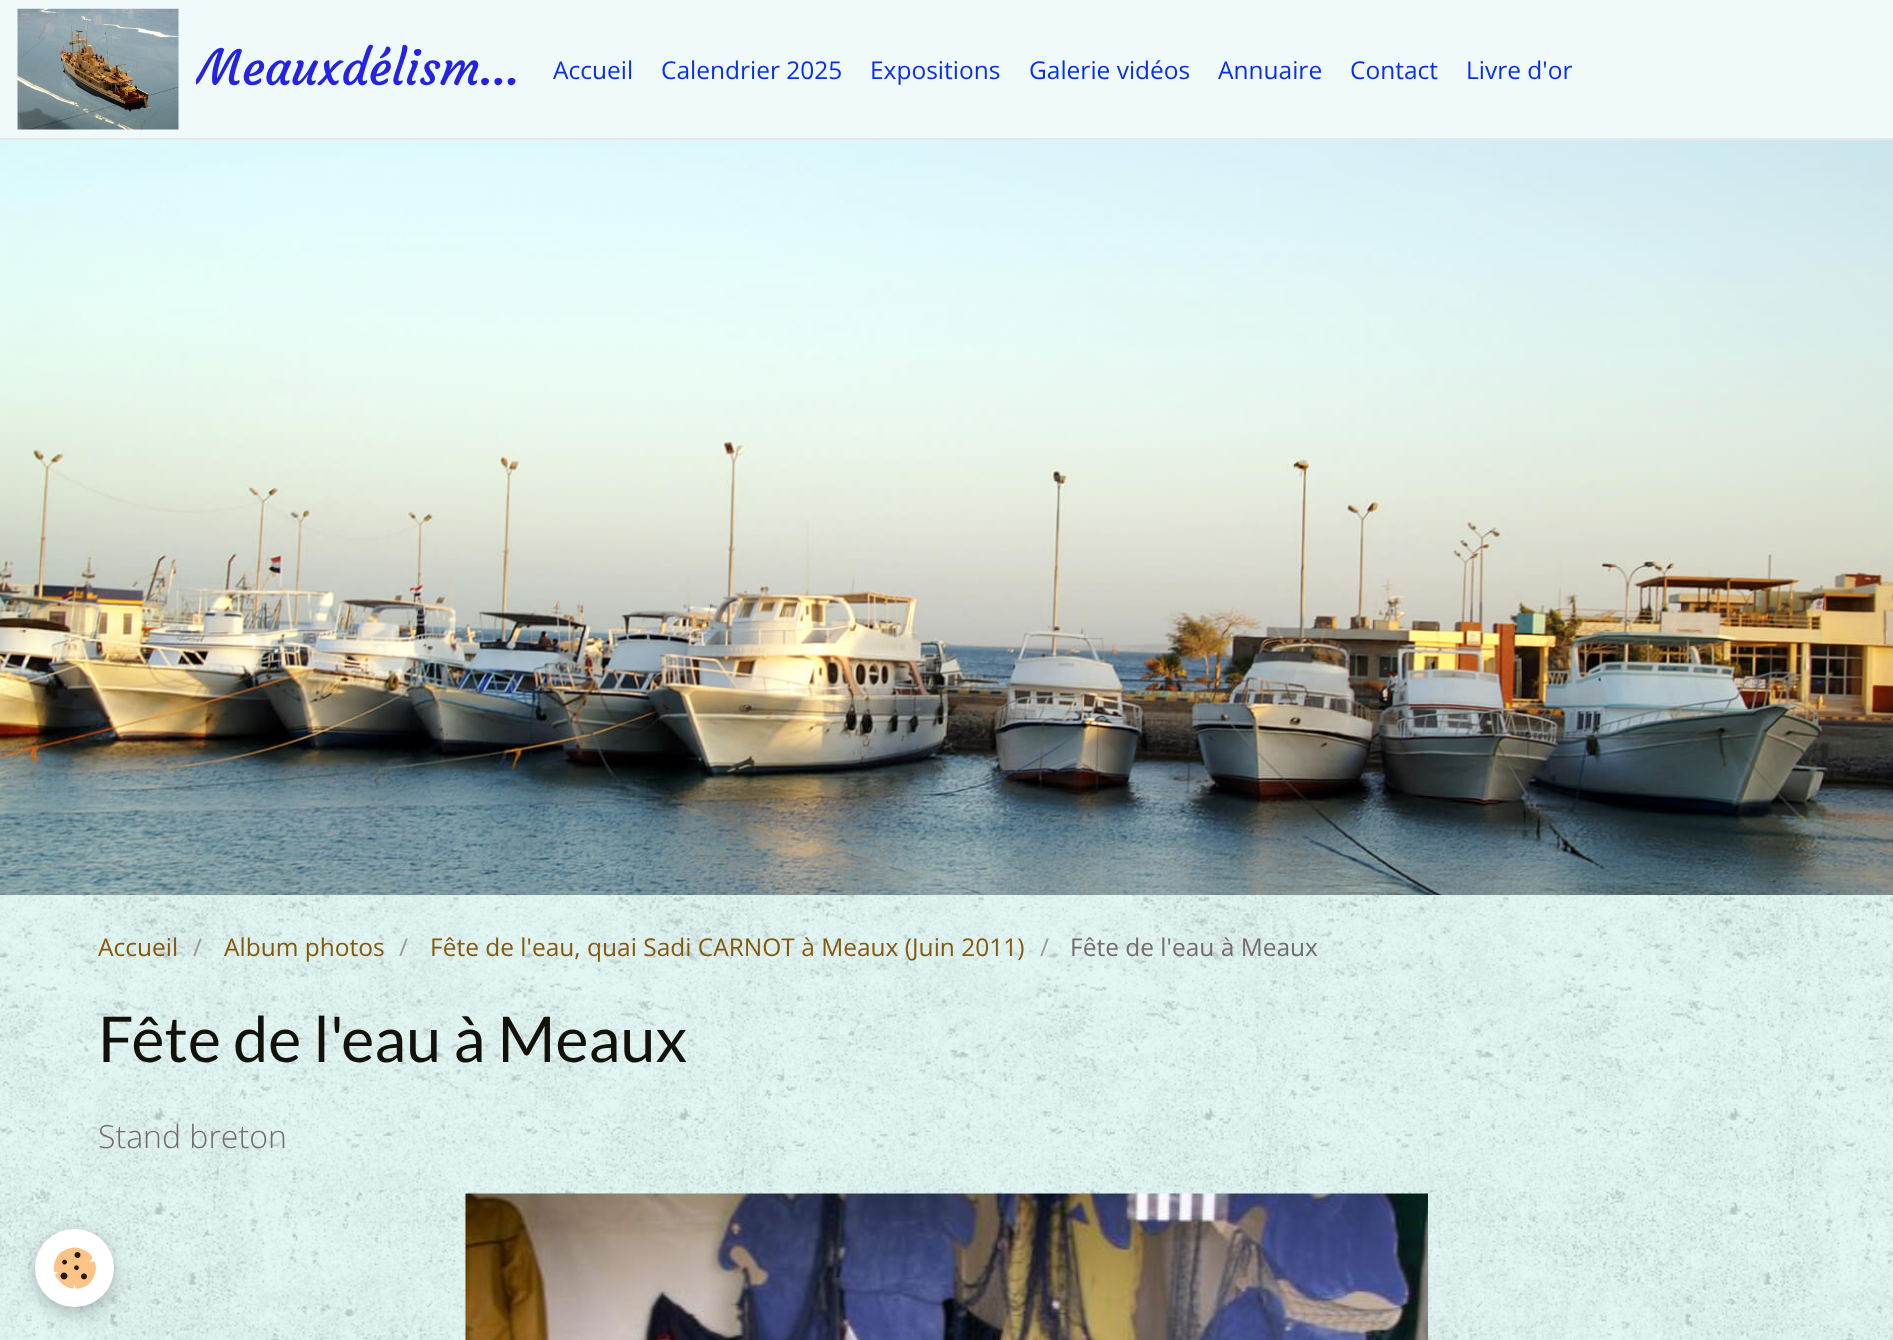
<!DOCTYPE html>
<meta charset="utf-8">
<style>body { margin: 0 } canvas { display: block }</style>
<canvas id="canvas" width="1893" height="1340"></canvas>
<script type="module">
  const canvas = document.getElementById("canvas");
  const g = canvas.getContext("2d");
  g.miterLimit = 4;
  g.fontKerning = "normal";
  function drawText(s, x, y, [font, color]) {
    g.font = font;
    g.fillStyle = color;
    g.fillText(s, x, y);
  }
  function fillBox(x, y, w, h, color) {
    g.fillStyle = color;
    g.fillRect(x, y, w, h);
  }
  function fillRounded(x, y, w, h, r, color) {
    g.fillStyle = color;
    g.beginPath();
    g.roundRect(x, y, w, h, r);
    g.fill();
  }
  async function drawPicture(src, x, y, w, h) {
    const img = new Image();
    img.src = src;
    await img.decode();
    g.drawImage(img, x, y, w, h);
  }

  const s1 = ["49px Courgette", "#2422E4"];
  const s2 = ["24.5px Open Sans", "#072FF3"];
  const s3 = ["24.5px Open Sans", "#85580C"];
  const s4 = ["24.5px Open Sans", "#9C9998"];
  const s5 = ["24.5px Open Sans", "#766B6B"];
  const s6 = ["63px Lato", "#13110B"];
  const s7 = ["300 32px Open Sans", "#766B6B"];

  fillBox(0, 0, 1893, 1340, "#E2F6F3");
  await drawPicture("pic1.png", 0, 895, 1893, 445);
  fillBox(0, 0, 1893, 138, "#F0FAFB");
  fillBox(0, 138, 1893, 2, "#E7E7E7");
  await drawPicture("pic2.png", 17, 8, 162, 122);
  g.save();
  g.beginPath();
  g.rect(196, 35, 326, 70);
  g.clip();
  drawText("Meauxdélism…", 196, 85, s1);
  g.restore();
  drawText("Accueil", 553, 79, s2);
  drawText("Calendrier 2025", 661, 79, s2);
  drawText("Expositions", 870, 79, s2);
  drawText("Galerie vidéos", 1029, 79, s2);
  drawText("Annuaire", 1218, 79, s2);
  drawText("Contact", 1350, 79, s2);
  drawText("Livre d'or", 1466, 79, s2);
  await drawPicture("pic3.png", 0, 140, 1893, 755);
  drawText("Accueil", 98, 956, s3);
  drawText("/", 193, 956, s4);
  drawText("Album photos", 224, 956, s3);
  drawText("/", 399, 956, s4);
  drawText("Fête de l'eau, quai Sadi CARNOT à Meaux (Juin 2011)", 430, 956, s3);
  drawText("/", 1040, 956, s4);
  drawText("Fête de l'eau à Meaux", 1070, 956, s5);
  drawText("Fête de l'eau à Meaux", 98, 1062, s6);
  drawText("Stand breton", 98, 1148, s7);
  await drawPicture("pic4.png", 465, 1193, 963, 147);
  g.fillStyle = "rgba(0, 0, 0, 0.24)";
  g.filter = "blur(9px)";
  g.beginPath();
  g.roundRect(35, 1234, 79, 79, 39.5);
  g.fill();
  g.filter = "none";
  fillRounded(35, 1229, 79, 78, 39, "#FFFFFF");
  await drawPicture("pic5.png", 53, 1247, 43, 42);
</script>
